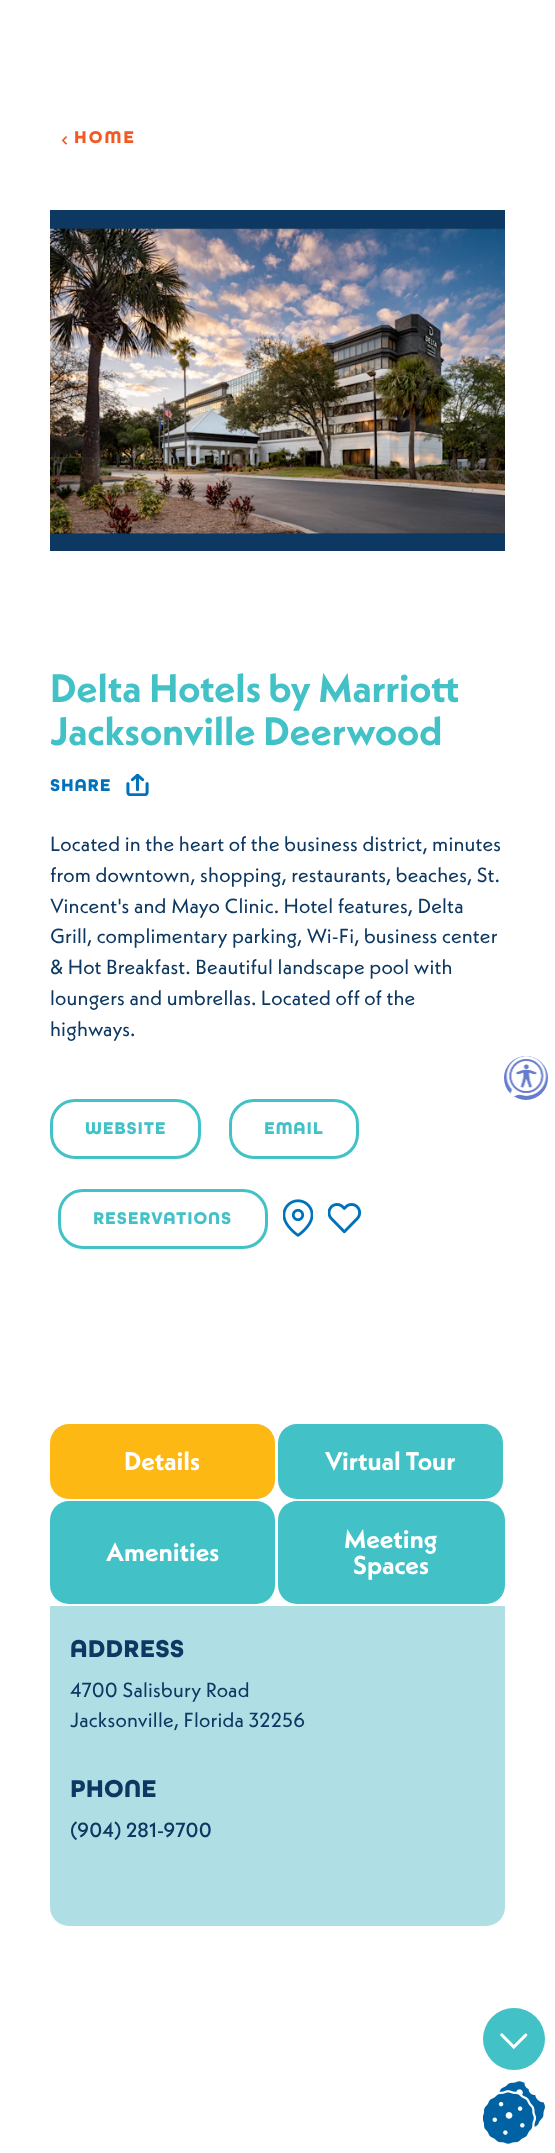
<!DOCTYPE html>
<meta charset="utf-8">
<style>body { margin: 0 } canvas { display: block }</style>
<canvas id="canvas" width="555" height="2153"></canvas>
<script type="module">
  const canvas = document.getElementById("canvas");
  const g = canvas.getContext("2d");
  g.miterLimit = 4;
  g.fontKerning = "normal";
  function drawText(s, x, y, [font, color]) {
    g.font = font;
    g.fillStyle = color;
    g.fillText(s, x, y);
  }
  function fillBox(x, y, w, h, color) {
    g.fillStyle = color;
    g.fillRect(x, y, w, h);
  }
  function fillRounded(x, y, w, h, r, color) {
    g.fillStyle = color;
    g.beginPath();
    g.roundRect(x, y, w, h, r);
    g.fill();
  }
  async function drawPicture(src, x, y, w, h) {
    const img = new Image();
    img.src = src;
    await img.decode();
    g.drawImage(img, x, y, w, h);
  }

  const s1 = ["bold 18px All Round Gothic", "#F15A22"];
  const s2 = ["bold 39.6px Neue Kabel", "#42C1C7"];
  const s3 = ["bold 18px All Round Gothic", "#0071BB"];
  const s4 = ["20.5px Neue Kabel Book", "#0D3862"];
  const s5 = ["bold 18px All Round Gothic", "#42C1C7"];
  const s6 = ["bold 25.75px Neue Kabel", "#FFFFFF"];
  const s7 = ["bold 25.75px All Round Gothic", "#0D3862"];
  const s8 = ["500 20.5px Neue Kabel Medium", "#0D3862"];

  fillBox(0, 0, 555, 2153, "#FFFFFF");
  await drawPicture("pic1.png", 61, 136, 7, 9);
  g.letterSpacing = "2px";
  drawText("HOME", 74, 143, s1);
  fillBox(50, 210, 455, 341, "#0D3862");
  await drawPicture("pic2.png", 50, 228, 455, 306);
  g.letterSpacing = "0px";
  drawText("Delta Hotels by Marriott", 50, 702, s2);
  drawText("Jacksonville Deerwood", 50, 745, s2);
  g.letterSpacing = "0.9px";
  drawText("SHARE", 50, 791, s3);
  await drawPicture("pic3.png", 126, 774, 23, 22);
  g.letterSpacing = "0.2px";
  drawText("Located in the heart of the business district, minutes", 50, 851, s4);
  drawText("from downtown, shopping, restaurants, beaches, St.", 50, 882, s4);
  drawText("Vincent's and Mayo Clinic. Hotel features, Delta", 50, 913, s4);
  drawText("Grill, complimentary parking, Wi-Fi, business center", 50, 943, s4);
  drawText("& Hot Breakfast. Beautiful landscape pool with", 50, 974, s4);
  drawText("loungers and umbrellas. Located off of the", 50, 1005, s4);
  drawText("highways.", 50, 1036, s4);
  g.beginPath();
  g.roundRect(51.5, 1100.5, 148, 57, 23.5);
  g.strokeStyle = "#42C1C7";
  g.lineWidth = 3;
  g.stroke();
  g.letterSpacing = "0.9px";
  drawText("WEBSITE", 85, 1134, s5);
  g.beginPath();
  g.roundRect(230.5, 1100.5, 127, 57, 23.5);
  g.stroke();
  drawText("EMAIL", 264, 1134, s5);
  g.beginPath();
  g.roundRect(59.5, 1190.5, 207, 57, 23.5);
  g.stroke();
  drawText("RESERVATIONS", 93, 1224, s5);
  await drawPicture("pic4.png", 283, 1199, 30, 38);
  await drawPicture("pic5.png", 328, 1203, 33, 31);
  fillRounded(50, 1424, 225, 75, 19, "#FDB814");
  g.letterSpacing = "0px";
  drawText("Details", 124, 1470, s6);
  fillRounded(278, 1424, 225, 75, 19, "#42C1C7");
  drawText("Virtual Tour", 325, 1470, s6);
  fillRounded(50, 1501, 225, 103, 19, "#42C1C7");
  drawText("Amenities", 106, 1561, s6);
  fillRounded(278, 1501, 227, 103, 19, "#42C1C7");
  drawText("Meeting", 344, 1548, s6);
  drawText("Spaces", 353, 1574, s6);
  g.fillStyle = "#AFDFE4";
  g.beginPath();
  g.roundRect(50, 1606, 455, 320, [0, 0, 19, 19]);
  g.fill();
  g.letterSpacing = "0.25px";
  drawText("ADDRESS", 70, 1657, s7);
  g.letterSpacing = "0.2px";
  drawText("4700 Salisbury Road", 70, 1697, s4);
  drawText("Jacksonville, Florida 32256", 70, 1727, s4);
  g.letterSpacing = "0.25px";
  drawText("PHONE", 70, 1797, s7);
  g.letterSpacing = "0.2px";
  drawText("(904) 281-9700", 70, 1837, s8);
  g.fillStyle = "#667CCC";
  g.beginPath();
  g.arc(526, 1078, 22, 0, Math.PI * 2);
  g.fill();
  await drawPicture("pic6.png", 506, 1056, 41, 41);
  g.fillStyle = "#42C1C7";
  g.beginPath();
  g.arc(514, 2039, 31, 0, Math.PI * 2);
  g.fill();
  await drawPicture("pic7.png", 500, 2033, 28, 17);
  await drawPicture("pic8.png", 483, 2081, 62, 63);
</script>
